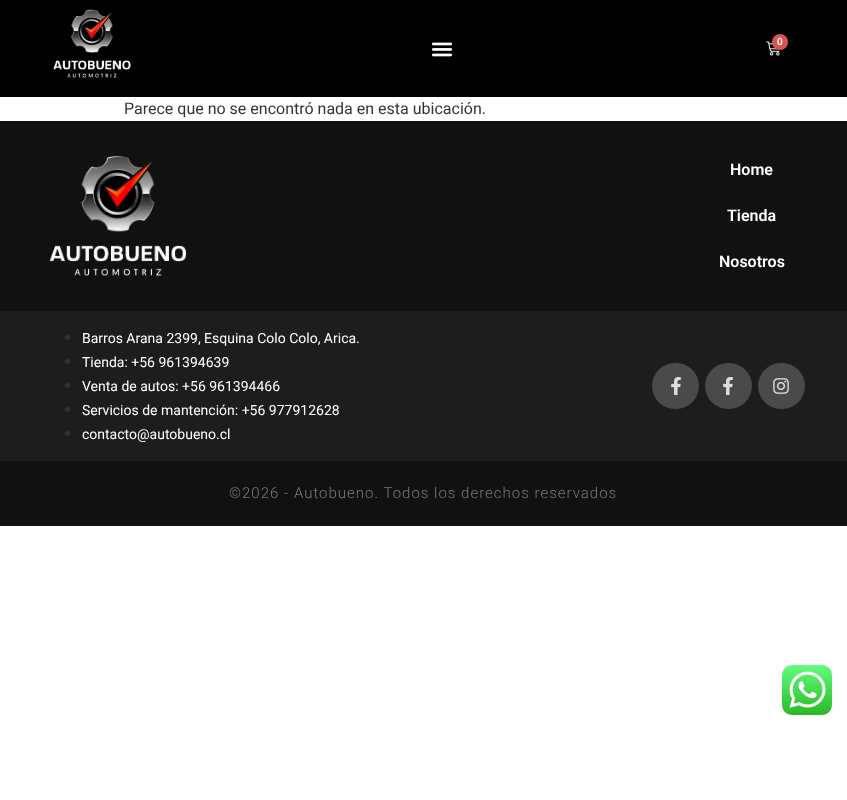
<!DOCTYPE html>
<meta charset="utf-8">
<style>body { margin: 0 } canvas { display: block }</style>
<canvas id="canvas" width="847" height="800"></canvas>
<script type="module">
  const canvas = document.getElementById("canvas");
  const g = canvas.getContext("2d");
  g.miterLimit = 4;
  g.fontKerning = "normal";
  function drawText(s, x, y, [font, color]) {
    g.font = font;
    g.fillStyle = color;
    g.fillText(s, x, y);
  }
  function fillBox(x, y, w, h, color) {
    g.fillStyle = color;
    g.fillRect(x, y, w, h);
  }
  function fillRounded(x, y, w, h, r, color) {
    g.fillStyle = color;
    g.beginPath();
    g.roundRect(x, y, w, h, r);
    g.fill();
  }
  async function drawPicture(src, x, y, w, h) {
    const img = new Image();
    img.src = src;
    await img.decode();
    g.drawImage(img, x, y, w, h);
  }

  const s1 = ["600 10px Roboto", "#FFFFFF"];
  const s2 = ["16px Roboto", "#333333"];
  const s3 = ["600 16px Roboto", "#FFFFFF"];
  const s4 = ["14px Roboto", "#FFFFFF"];
  const s5 = ["300 15px Roboto", "#7A7A7A"];

  fillBox(0, 0, 847, 800, "#FFFFFF");
  fillBox(0, 0, 847, 97, "#000000");
  await drawPicture("pic1.png", 53, 9, 78, 69);
  await drawPicture("pic2.png", 431, 42, 22, 15);
  await drawPicture("pic3.png", 766, 41, 14, 15);
  g.fillStyle = "#D9534F";
  g.beginPath();
  g.arc(780, 42, 8, 0, Math.PI * 2);
  g.fill();
  drawText("0", 777, 45, s1);
  drawText("Parece que no se encontró nada en esta ubicación.", 124, 114, s2);
  fillBox(0, 121, 847, 190, "#111111");
  await drawPicture("pic4.png", 49, 155, 138, 121);
  drawText("Home", 730, 175, s3);
  drawText("Tienda", 727, 221, s3);
  drawText("Nosotros", 719, 267, s3);
  fillBox(0, 311, 847, 150, "#1D1D1D");
  g.fillStyle = "#333333";
  g.beginPath();
  g.arc(67.5, 337.5, 2.5, 0, Math.PI * 2);
  g.fill();
  drawText("Barros Arana 2399, Esquina Colo Colo, Arica.", 82, 343, s4);
  g.fillStyle = "#333333";
  g.beginPath();
  g.arc(67.5, 361.5, 2.5, 0, Math.PI * 2);
  g.fill();
  drawText("Tienda: +56 961394639", 82, 367, s4);
  g.fillStyle = "#333333";
  g.beginPath();
  g.arc(67.5, 385.5, 2.5, 0, Math.PI * 2);
  g.fill();
  drawText("Venta de autos: +56 961394466", 82, 391, s4);
  g.fillStyle = "#333333";
  g.beginPath();
  g.arc(67.5, 409.5, 2.5, 0, Math.PI * 2);
  g.fill();
  drawText("Servicios de mantención: +56 977912628", 82, 415, s4);
  g.fillStyle = "#333333";
  g.beginPath();
  g.arc(67.5, 433.5, 2.5, 0, Math.PI * 2);
  g.fill();
  drawText("contacto@autobueno.cl", 82, 439, s4);
  fillRounded(652, 363, 47, 46, 23, "#4A4A4A");
  await drawPicture("pic5.png", 671, 377, 10, 18);
  fillRounded(705, 363, 47, 46, 23, "#4A4A4A");
  await drawPicture("pic5.png", 723, 377, 10, 18);
  fillRounded(758, 363, 47, 46, 23, "#4A4A4A");
  await drawPicture("pic6.png", 773, 378, 16, 16);
  fillBox(0, 461, 847, 65, "#111111");
  g.letterSpacing = "1px";
  drawText("©2026 - Autobueno. Todos los derechos reservados", 229, 498, s5);
  await drawPicture("pic7.png", 782, 665, 50, 50);
</script>
